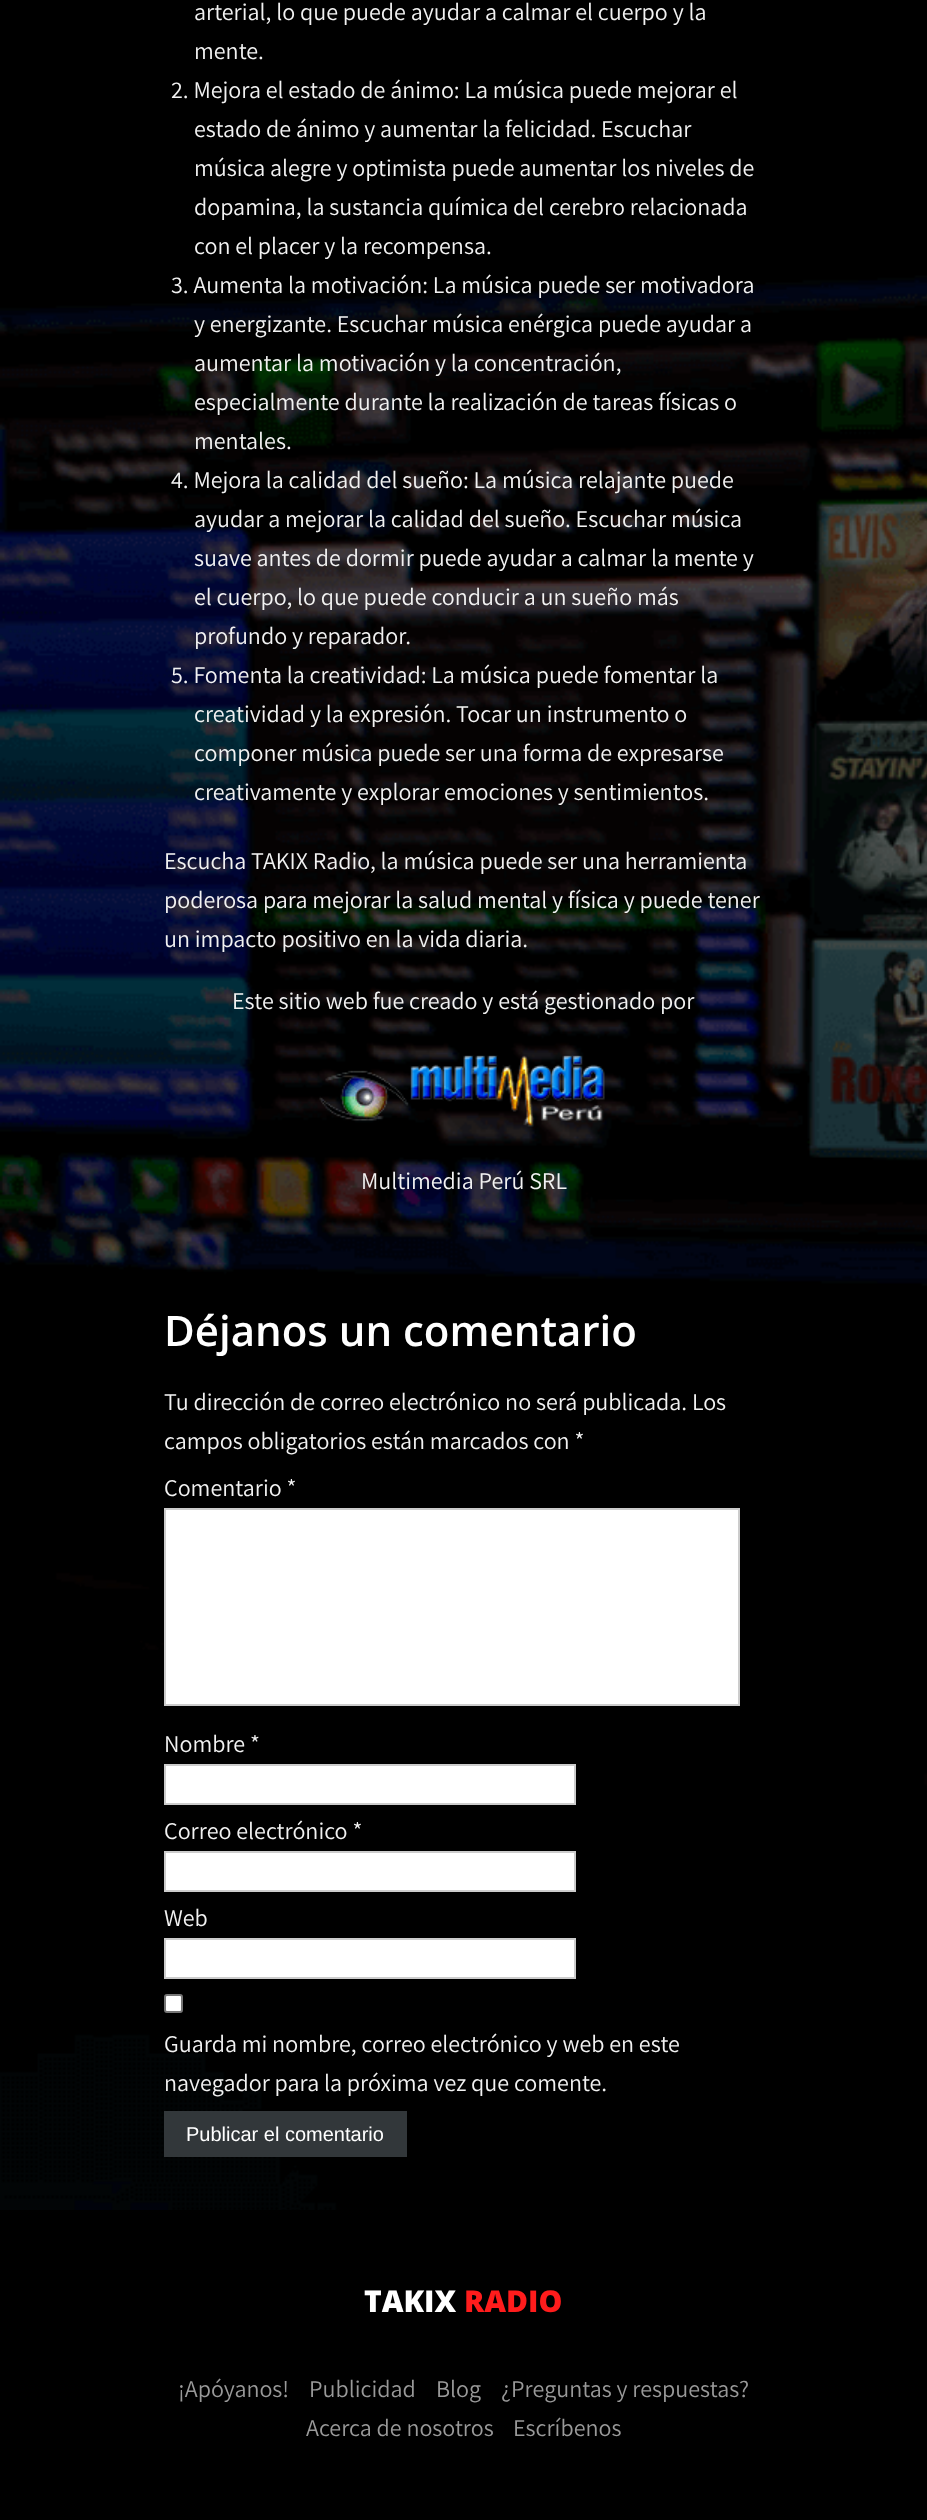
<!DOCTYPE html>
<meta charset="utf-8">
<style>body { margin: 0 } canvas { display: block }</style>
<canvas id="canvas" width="927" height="2520"></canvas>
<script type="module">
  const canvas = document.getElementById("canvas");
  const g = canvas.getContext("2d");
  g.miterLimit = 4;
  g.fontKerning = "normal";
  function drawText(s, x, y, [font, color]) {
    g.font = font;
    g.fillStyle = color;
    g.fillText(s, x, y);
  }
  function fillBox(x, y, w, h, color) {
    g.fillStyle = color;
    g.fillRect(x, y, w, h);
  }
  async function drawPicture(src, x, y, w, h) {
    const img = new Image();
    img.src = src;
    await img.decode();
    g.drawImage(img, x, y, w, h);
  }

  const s1 = ["24px Assistant", "#F2F2F2"];
  const s2 = ["600 42px Open Sans", "#FFFFFF"];
  const s3 = ["20px Liberation Sans", "#FFFFFF"];
  const s4 = ["800 30px Open Sans", "#FFFFFF"];
  const s5 = ["800 30px Open Sans", "#FF1C1C"];
  const s6 = ["24px Assistant", "#999999"];

  fillBox(0, 0, 927, 2520, "#FFFFFF");
  await drawPicture("pic1.png", 0, 0, 927, 2210);
  drawText("arterial, lo que puede ayudar a calmar el cuerpo y la", 194, 20, s1);
  drawText("mente.", 194, 59, s1);
  drawText("2. Mejora el estado de ánimo: La música puede mejorar el", 171, 98, s1);
  drawText("estado de ánimo y aumentar la felicidad. Escuchar", 194, 137, s1);
  drawText("música alegre y optimista puede aumentar los niveles de", 194, 176, s1);
  drawText("dopamina, la sustancia química del cerebro relacionada", 194, 215, s1);
  drawText("con el placer y la recompensa.", 194, 254, s1);
  drawText("3. Aumenta la motivación: La música puede ser motivadora", 171, 293, s1);
  drawText("y energizante. Escuchar música enérgica puede ayudar a", 194, 332, s1);
  drawText("aumentar la motivación y la concentración,", 194, 371, s1);
  drawText("especialmente durante la realización de tareas físicas o", 194, 410, s1);
  drawText("mentales.", 194, 449, s1);
  drawText("4. Mejora la calidad del sueño: La música relajante puede", 171, 488, s1);
  drawText("ayudar a mejorar la calidad del sueño. Escuchar música", 194, 527, s1);
  drawText("suave antes de dormir puede ayudar a calmar la mente y", 194, 566, s1);
  drawText("el cuerpo, lo que puede conducir a un sueño más", 194, 605, s1);
  drawText("profundo y reparador.", 194, 644, s1);
  drawText("5. Fomenta la creatividad: La música puede fomentar la", 171, 683, s1);
  drawText("creatividad y la expresión. Tocar un instrumento o", 194, 722, s1);
  drawText("componer música puede ser una forma de expresarse", 194, 761, s1);
  drawText("creativamente y explorar emociones y sentimientos.", 194, 800, s1);
  drawText("Escucha TAKIX Radio, la música puede ser una herramienta", 164, 869, s1);
  drawText("poderosa para mejorar la salud mental y física y puede tener", 164, 908, s1);
  drawText("un impacto positivo en la vida diaria.", 164, 947, s1);
  drawText("Este sitio web fue creado y está gestionado por", 232, 1009, s1);
  await drawPicture("pic2.png", 319, 1055, 286, 72);
  drawText("Multimedia Perú SRL", 361, 1189, s1);
  drawText("Déjanos un comentario", 164, 1346, s2);
  drawText("Tu dirección de correo electrónico no será publicada. Los", 164, 1410, s1);
  drawText("campos obligatorios están marcados con *", 164, 1449, s1);
  drawText("Comentario *", 164, 1496, s1);
  g.fillStyle = "#FFFFFF";
  g.beginPath();
  g.rect(165, 1509, 574, 196);
  g.fill();
  g.strokeStyle = "#CCCCCC";
  g.lineWidth = 2;
  g.stroke();
  drawText("Nombre *", 164, 1752, s1);
  g.fillStyle = "#FFFFFF";
  g.beginPath();
  g.rect(165, 1765, 410, 39);
  g.fill();
  g.stroke();
  drawText("Correo electrónico *", 164, 1839, s1);
  g.fillStyle = "#FFFFFF";
  g.beginPath();
  g.rect(165, 1852, 410, 39);
  g.fill();
  g.stroke();
  drawText("Web", 164, 1926, s1);
  g.fillStyle = "#FFFFFF";
  g.beginPath();
  g.rect(165, 1939, 410, 39);
  g.fill();
  g.stroke();
  g.beginPath();
  g.roundRect(165, 1995, 17, 17, 2);
  g.fill();
  g.strokeStyle = "#767676";
  g.stroke();
  drawText("Guarda mi nombre, correo electrónico y web en este", 164, 2052, s1);
  drawText("navegador para la próxima vez que comente.", 164, 2091, s1);
  fillBox(164, 2111, 243, 46, "#32373A");
  drawText("Publicar el comentario", 186, 2141, s3);
  fillBox(0, 2210, 927, 310, "#000000");
  drawText("TAKIX", 364, 2312, s4);
  drawText("RADIO", 464, 2312, s5);
  drawText("¡Apóyanos!", 178, 2397, s6);
  drawText("Publicidad", 309, 2397, s6);
  drawText("Blog", 436, 2397, s6);
  drawText("¿Preguntas y respuestas?", 501, 2397, s6);
  drawText("Acerca de nosotros", 306, 2436, s6);
  drawText("Escríbenos", 513, 2436, s6);
</script>
